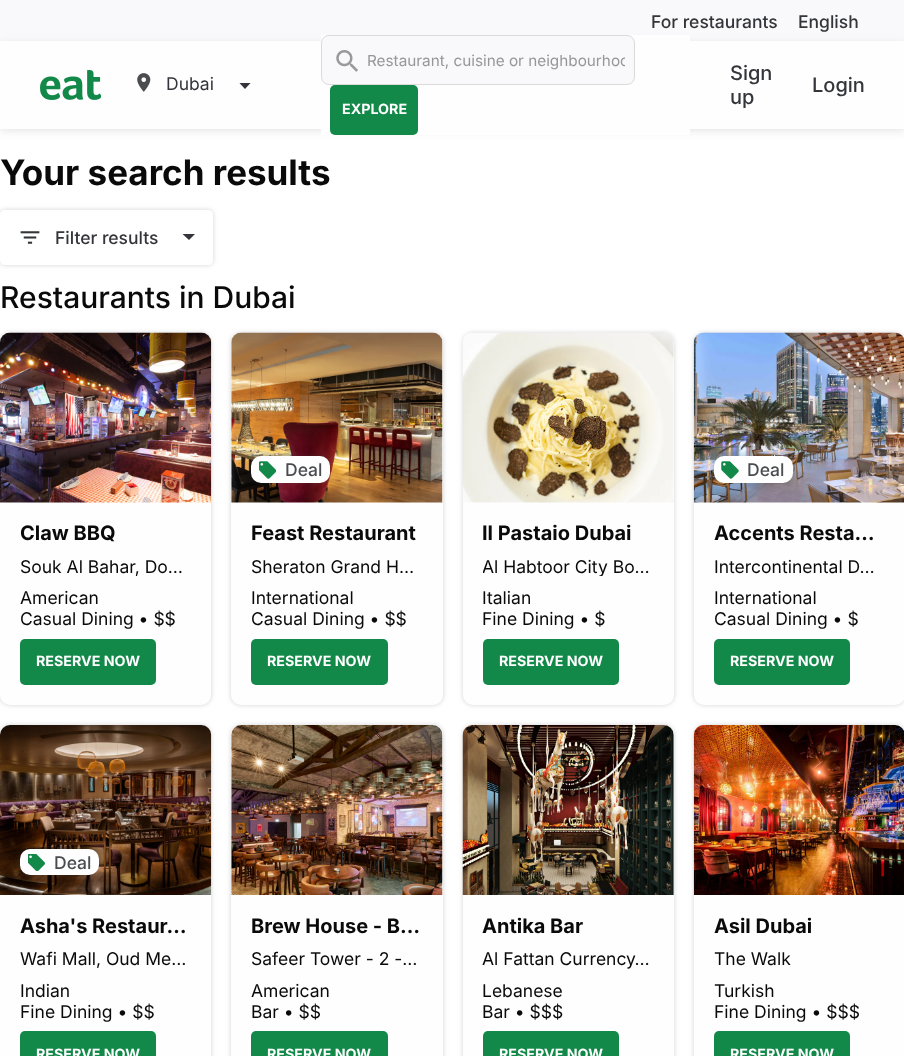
<!DOCTYPE html>
<meta charset="utf-8">
<style>body { margin: 0 } canvas { display: block }</style>
<canvas id="canvas" width="904" height="1056"></canvas>
<script type="module">
  const canvas = document.getElementById("canvas");
  const g = canvas.getContext("2d");
  g.miterLimit = 4;
  g.fontKerning = "normal";
  function drawText(s, x, y, [font, color]) {
    g.font = font;
    g.fillStyle = color;
    g.fillText(s, x, y);
  }
  function fillBox(x, y, w, h, color) {
    g.fillStyle = color;
    g.fillRect(x, y, w, h);
  }
  function fillRounded(x, y, w, h, r, color) {
    g.fillStyle = color;
    g.beginPath();
    g.roundRect(x, y, w, h, r);
    g.fill();
  }
  async function drawPicture(src, x, y, w, h) {
    const img = new Image();
    img.src = src;
    await img.decode();
    g.drawImage(img, x, y, w, h);
  }

  const s1 = ["500 17.5px Inter", "#34353A"];
  const s2 = ["17.5px Inter", "#34353A"];
  const s3 = ["15.3px Inter", "#979797"];
  const s4 = ["bold 14.25px Inter", "#FEFEFE"];
  const s5 = ["500 20px Inter", "#34353A"];
  const s6 = ["bold 35px Inter", "#0A0A0A"];
  const s7 = ["500 30px Inter", "#0A0A0A"];
  const s8 = ["bold 20px Inter", "#0A0A0A"];
  const s9 = ["17.5px Inter", "#0A0A0A"];
  const s10 = ["500 17.5px Inter", "#4A4C50"];

  fillBox(0, 0, 904, 1056, "#FFFFFF");
  fillBox(0, 0, 904, 41, "#F9F9FB");
  g.fillStyle = "rgba(80, 80, 80, 0.15)";
  g.filter = "blur(5px)";
  g.beginPath();
  g.rect(0, 44, 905, 87);
  g.fill();
  g.filter = "none";
  drawText("For restaurants", 651, 28, s1);
  drawText("English", 798, 28, s1);
  fillBox(0, 41, 904, 88, "#FEFEFE");
  await drawPicture("pic1.png", 40, 70, 61, 30);
  await drawPicture("pic2.png", 137, 73, 14, 19);
  drawText("Dubai", 166, 90, s2);
  g.save();
  g.beginPath();
  g.rect(239, 83, 12, 6);
  g.clip();
  g.beginPath();
  g.moveTo(239, 82.5);
  g.lineTo(245, 89);
  g.lineTo(251, 82.5);
  g.closePath();
  g.fill();
  g.restore();
  fillBox(321, 35, 369, 100, "#FEFEFE");
  g.fillStyle = "#F9F9FB";
  g.beginPath();
  g.roundRect(321.5, 35.5, 313, 49, 7.5);
  g.fill();
  g.strokeStyle = "#DADADA";
  g.stroke();
  await drawPicture("pic3.png", 336, 50, 22, 22);
  g.save();
  g.beginPath();
  g.rect(366, 51, 259, 19);
  g.clip();
  drawText("Restaurant, cuisine or neighbourhoo", 367, 66, s3);
  g.restore();
  fillRounded(330, 85, 88, 50, 5, "#128849");
  drawText("EXPLORE", 342, 114, s4);
  drawText("Sign", 730, 80, s5);
  drawText("up", 730, 104, s5);
  drawText("Login", 812, 92, s5);
  drawText("Your search results", 0, 185, s6);
  g.save();
  g.beginPath();
  g.moveTo(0, 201);
  g.lineTo(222, 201);
  g.lineTo(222, 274);
  g.lineTo(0, 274);
  g.closePath();
  g.moveTo(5, 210);
  g.lineTo(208, 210);
  g.bezierCurveTo(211, 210, 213, 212, 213, 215);
  g.lineTo(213, 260);
  g.bezierCurveTo(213, 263, 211, 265, 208, 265);
  g.lineTo(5, 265);
  g.bezierCurveTo(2, 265, 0, 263, 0, 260);
  g.lineTo(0, 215);
  g.bezierCurveTo(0, 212, 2, 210, 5, 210);
  g.closePath();
  g.clip("evenodd");
  g.fillStyle = "rgba(80, 80, 80, 0.25)";
  g.filter = "blur(2.5px)";
  g.beginPath();
  g.roundRect(0, 210, 213, 55, 5);
  g.fill();
  g.filter = "none";
  g.restore();
  await drawPicture("pic4.png", 20, 231, 20, 13);
  drawText("Filter results", 55, 244, s1);
  g.beginPath();
  g.moveTo(182.5, 234);
  g.lineTo(189, 240);
  g.lineTo(195, 234);
  g.closePath();
  g.fill();
  drawText("Restaurants in Dubai", 0, 308, s7);
  g.fillStyle = "rgba(80, 80, 80, 0.25)";
  g.filter = "blur(2.5px)";
  g.beginPath();
  g.roundRect(0, 333, 211, 372, 10);
  g.fill();
  g.filter = "none";
  fillRounded(0, 333, 211, 372, 10, "#FEFEFE");
  await drawPicture("pic5.png", 0, 332, 212, 171);
  drawText("Claw BBQ", 20, 540, s8);
  drawText("Souk Al Bahar, Do…", 20, 573, s9);
  drawText("American", 20, 604, s9);
  drawText("Casual Dining • $$", 20, 625, s9);
  fillRounded(20, 639, 136, 46, 5, "#128849");
  drawText("RESERVE NOW", 36, 666, s4);
  g.fillStyle = "rgba(80, 80, 80, 0.25)";
  g.filter = "blur(2.5px)";
  g.beginPath();
  g.roundRect(231, 333, 212, 372, 10);
  g.fill();
  g.filter = "none";
  fillRounded(231, 333, 212, 372, 10, "#FEFEFE");
  await drawPicture("pic6.png", 231, 332, 212, 171);
  g.fillStyle = "rgba(80, 80, 80, 0.25)";
  g.filter = "blur(2.5px)";
  g.beginPath();
  g.roundRect(251, 456, 79, 27, 10);
  g.fill();
  g.filter = "none";
  fillRounded(251, 456, 79, 27, 10, "#FEFEFE");
  await drawPicture("pic7.png", 259, 461, 17, 18);
  drawText("Deal", 285, 476, s10);
  drawText("Feast Restaurant", 251, 540, s8);
  drawText("Sheraton Grand H…", 251, 573, s9);
  drawText("International", 251, 604, s9);
  drawText("Casual Dining • $$", 251, 625, s9);
  fillRounded(251, 639, 137, 46, 5, "#128849");
  drawText("RESERVE NOW", 267, 666, s4);
  g.fillStyle = "rgba(80, 80, 80, 0.25)";
  g.filter = "blur(2.5px)";
  g.beginPath();
  g.roundRect(463, 333, 211, 372, 10);
  g.fill();
  g.filter = "none";
  fillRounded(463, 333, 211, 372, 10, "#FEFEFE");
  await drawPicture("pic8.png", 462, 332, 212, 171);
  drawText("Il Pastaio Dubai", 482, 540, s8);
  g.save();
  g.beginPath();
  g.rect(483, 555, 171, 21);
  g.clip();
  drawText("Al Habtoor City Bo…", 482, 573, s9);
  g.restore();
  drawText("Italian", 482, 604, s9);
  drawText("Fine Dining • $", 482, 625, s9);
  fillRounded(483, 639, 136, 46, 5, "#128849");
  drawText("RESERVE NOW", 499, 666, s4);
  g.fillStyle = "rgba(80, 80, 80, 0.25)";
  g.filter = "blur(2.5px)";
  g.beginPath();
  g.roundRect(694, 333, 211, 372, 10);
  g.fill();
  g.filter = "none";
  fillRounded(694, 333, 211, 372, 10, "#FEFEFE");
  await drawPicture("pic9.png", 693, 332, 211, 171);
  g.fillStyle = "rgba(80, 80, 80, 0.25)";
  g.filter = "blur(2.5px)";
  g.beginPath();
  g.roundRect(714, 456, 79, 27, 10);
  g.fill();
  g.filter = "none";
  fillRounded(714, 456, 79, 27, 10, "#FEFEFE");
  await drawPicture("pic10.png", 721, 461, 18, 18);
  drawText("Deal", 747, 476, s10);
  drawText("Accents Resta…", 714, 540, s8);
  drawText("Intercontinental D…", 714, 573, s9);
  drawText("International", 714, 604, s9);
  drawText("Casual Dining • $", 714, 625, s9);
  fillRounded(714, 639, 136, 46, 5, "#128849");
  drawText("RESERVE NOW", 730, 666, s4);
  g.fillStyle = "rgba(80, 80, 80, 0.25)";
  g.filter = "blur(2.5px)";
  g.beginPath();
  g.roundRect(0, 725, 211, 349, 10);
  g.fill();
  g.filter = "none";
  g.fillStyle = "#FEFEFE";
  g.beginPath();
  g.roundRect(0, 725, 211, 331, [10, 10, 0, 0]);
  g.fill();
  await drawPicture("pic11.png", 0, 725, 212, 170);
  g.fillStyle = "rgba(80, 80, 80, 0.25)";
  g.filter = "blur(2.5px)";
  g.beginPath();
  g.roundRect(20, 849, 79, 26, 10);
  g.fill();
  g.filter = "none";
  fillRounded(20, 849, 79, 26, 10, "#FEFEFE");
  await drawPicture("pic12.png", 28, 854, 17, 17);
  drawText("Deal", 54, 869, s10);
  drawText("Asha's Restaur…", 20, 933, s8);
  drawText("Wafi Mall, Oud Me…", 20, 965, s9);
  drawText("Indian", 20, 997, s9);
  drawText("Fine Dining • $$", 20, 1018, s9);
  g.fillStyle = "#128849";
  g.beginPath();
  g.roundRect(20, 1031, 136, 25, [5, 5, 0, 0]);
  g.fill();
  drawText("RESERVE NOW", 36, 1059, s4);
  g.fillStyle = "rgba(80, 80, 80, 0.25)";
  g.filter = "blur(2.5px)";
  g.beginPath();
  g.roundRect(231, 725, 212, 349, 10);
  g.fill();
  g.filter = "none";
  g.fillStyle = "#FEFEFE";
  g.beginPath();
  g.roundRect(231, 725, 212, 331, [10, 10, 0, 0]);
  g.fill();
  await drawPicture("pic13.png", 231, 725, 212, 170);
  drawText("Brew House - B…", 251, 933, s8);
  drawText("Safeer Tower - 2 -…", 251, 965, s9);
  drawText("American", 251, 997, s9);
  drawText("Bar • $$", 251, 1018, s9);
  g.fillStyle = "#128849";
  g.beginPath();
  g.roundRect(251, 1031, 137, 25, [5, 5, 0, 0]);
  g.fill();
  drawText("RESERVE NOW", 267, 1059, s4);
  g.fillStyle = "rgba(80, 80, 80, 0.25)";
  g.filter = "blur(2.5px)";
  g.beginPath();
  g.roundRect(463, 725, 211, 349, 10);
  g.fill();
  g.filter = "none";
  g.fillStyle = "#FEFEFE";
  g.beginPath();
  g.roundRect(463, 725, 211, 331, [10, 10, 0, 0]);
  g.fill();
  await drawPicture("pic14.png", 462, 725, 212, 170);
  drawText("Antika Bar", 482, 933, s8);
  drawText("Al Fattan Currency…", 482, 965, s9);
  drawText("Lebanese", 482, 997, s9);
  drawText("Bar • $$$", 482, 1018, s9);
  g.fillStyle = "#128849";
  g.beginPath();
  g.roundRect(483, 1031, 136, 25, [5, 5, 0, 0]);
  g.fill();
  drawText("RESERVE NOW", 499, 1059, s4);
  g.fillStyle = "rgba(80, 80, 80, 0.25)";
  g.filter = "blur(2.5px)";
  g.beginPath();
  g.roundRect(694, 725, 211, 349, 10);
  g.fill();
  g.filter = "none";
  g.fillStyle = "#FEFEFE";
  g.beginPath();
  g.moveTo(704, 725);
  g.lineTo(895, 725);
  g.bezierCurveTo(900.5, 725, 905, 729.5, 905, 735);
  g.lineTo(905, 1056);
  g.lineTo(694, 1056);
  g.lineTo(694, 735);
  g.bezierCurveTo(694, 729.5, 698.5, 725, 704, 725);
  g.closePath();
  g.fill();
  await drawPicture("pic15.png", 693, 725, 211, 170);
  drawText("Asil Dubai", 714, 933, s8);
  drawText("The Walk", 714, 965, s9);
  drawText("Turkish", 714, 997, s9);
  drawText("Fine Dining • $$$", 714, 1018, s9);
  g.fillStyle = "#128849";
  g.beginPath();
  g.roundRect(714, 1031, 136, 25, [5, 5, 0, 0]);
  g.fill();
  drawText("RESERVE NOW", 730, 1059, s4);
</script>
